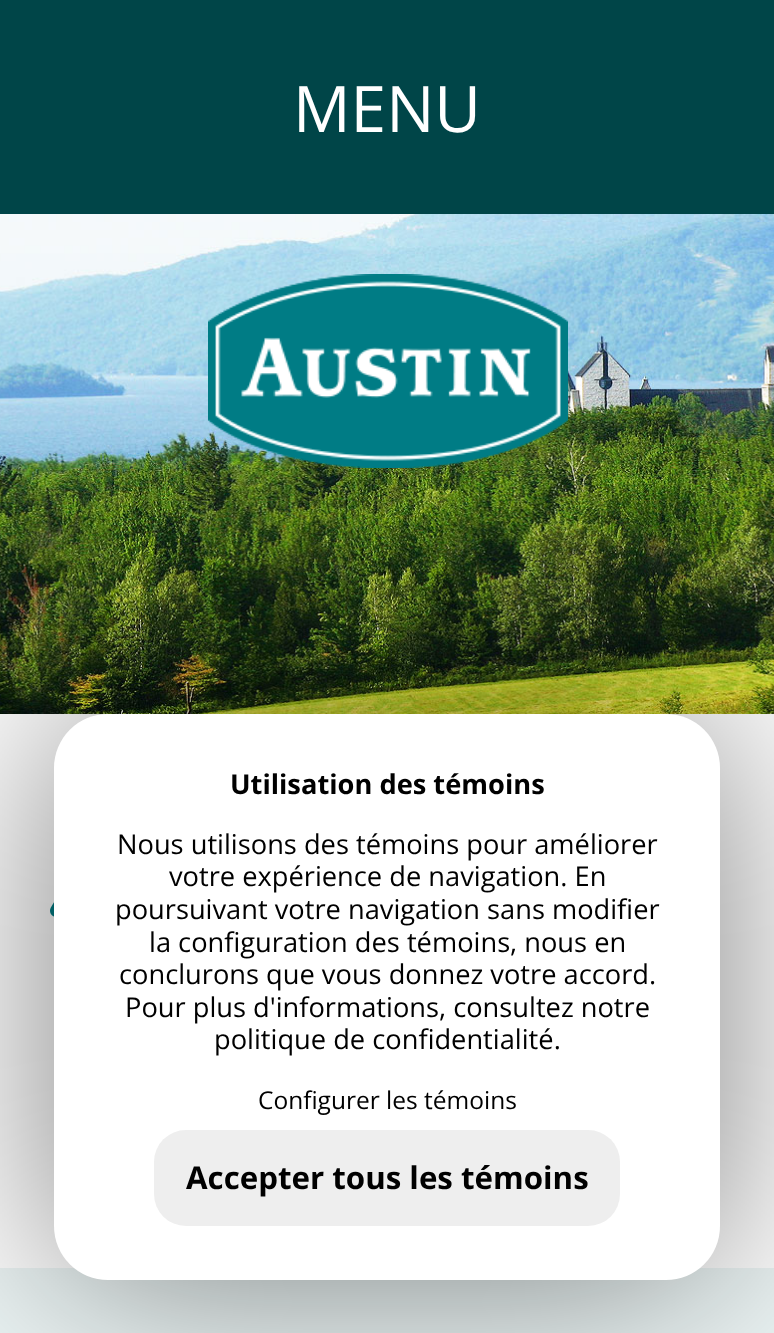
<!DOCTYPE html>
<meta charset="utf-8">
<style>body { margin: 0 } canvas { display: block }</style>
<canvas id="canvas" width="774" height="1333"></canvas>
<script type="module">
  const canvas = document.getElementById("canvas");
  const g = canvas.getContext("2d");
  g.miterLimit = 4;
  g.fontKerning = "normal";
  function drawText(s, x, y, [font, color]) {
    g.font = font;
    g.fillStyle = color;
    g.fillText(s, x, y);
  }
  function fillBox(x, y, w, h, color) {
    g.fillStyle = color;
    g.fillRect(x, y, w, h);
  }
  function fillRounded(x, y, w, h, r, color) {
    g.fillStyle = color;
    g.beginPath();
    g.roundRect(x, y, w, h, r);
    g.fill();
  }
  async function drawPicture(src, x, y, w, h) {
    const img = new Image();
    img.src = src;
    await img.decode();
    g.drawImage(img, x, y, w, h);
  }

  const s1 = ["64px Open Sans", "#FFFFFF"];
  const s2 = ["bold 27.25px Open Sans", "#000000"];
  const s3 = ["27.25px Open Sans", "#000000"];
  const s4 = ["24.5px Open Sans", "#000000"];
  const s5 = ["bold 31.25px Open Sans", "#000000"];

  fillBox(0, 0, 774, 1333, "#FFFFFF");
  fillBox(0, 0, 774, 214, "#004548");
  drawText("MENU", 293, 132, s1);
  await drawPicture("pic1.png", 0, 214, 774, 500);
  await drawPicture("pic2.png", 208, 274, 360, 194);
  await drawPicture("pic3.png", 50, 902, 4, 15);
  fillBox(0, 1268, 774, 65, "#EDF6F6");
  g.fillStyle = "rgba(0, 0, 0, 0.5)";
  g.filter = "blur(100px)";
  g.beginPath();
  g.roundRect(54, 714, 666, 566, 54);
  g.fill();
  g.filter = "none";
  fillRounded(54, 714, 666, 566, 54, "#FFFFFF");
  drawText("Utilisation des témoins", 230, 794, s2);
  drawText("Nous utilisons des témoins pour améliorer", 117, 854, s3);
  drawText("votre expérience de navigation. En", 169, 886, s3);
  drawText("poursuivant votre navigation sans modifier", 115, 919, s3);
  drawText("la configuration des témoins, nous en", 149, 952, s3);
  drawText("conclurons que vous donnez votre accord.", 119, 984, s3);
  drawText("Pour plus d'informations, consultez notre", 125, 1017, s3);
  drawText("politique de confidentialité.", 214, 1049, s3);
  drawText("Configurer les témoins", 258, 1109, s4);
  fillRounded(154, 1130, 466, 96, 32, "#EEEEEE");
  drawText("Accepter tous les témoins", 186, 1189, s5);
</script>
